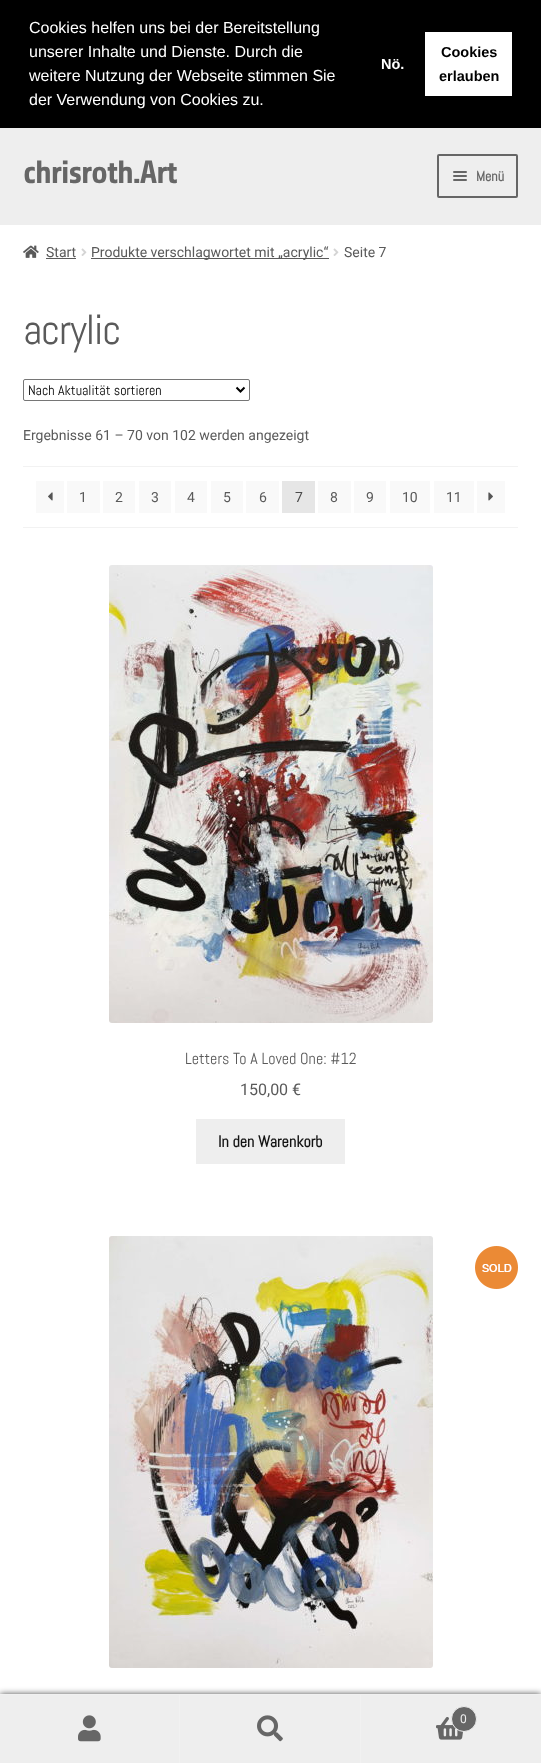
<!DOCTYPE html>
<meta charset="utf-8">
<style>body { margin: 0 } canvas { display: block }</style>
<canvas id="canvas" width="541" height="1763"></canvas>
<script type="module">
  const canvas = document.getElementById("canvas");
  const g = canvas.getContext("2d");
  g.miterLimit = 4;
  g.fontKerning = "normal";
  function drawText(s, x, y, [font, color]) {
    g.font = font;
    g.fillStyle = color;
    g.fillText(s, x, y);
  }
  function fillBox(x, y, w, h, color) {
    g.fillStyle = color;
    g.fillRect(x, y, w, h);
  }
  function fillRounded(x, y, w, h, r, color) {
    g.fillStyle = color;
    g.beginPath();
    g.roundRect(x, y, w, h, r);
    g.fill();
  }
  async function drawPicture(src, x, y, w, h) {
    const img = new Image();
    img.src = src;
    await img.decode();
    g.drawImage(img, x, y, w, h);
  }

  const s1 = ["16px Liberation Sans", "#FFFFFF"];
  const s2 = ["bold 14.5px Liberation Sans", "#FFFFFF"];
  const s3 = ["bold 14.5px Liberation Sans", "#000000"];
  const s4 = ["bold 32px Share", "#666666"];
  const s5 = ["bold 14px Abel", "#666666"];
  const s6 = ["14px Roboto", "#5A5A5A"];
  const s7 = ["42px Abel", "#5A5A5A"];
  const s8 = ["14px Abel", "#000000"];
  const s9 = ["14px Roboto", "#4B4B4B"];
  const s10 = ["16px Abel", "#5A5A5A"];
  const s11 = ["16px Roboto", "#5A5A5A"];
  const s12 = ["bold 16px Abel", "#141414"];
  const s13 = ["12px Roboto", "#EEEEEE"];

  fillBox(0, 0, 541, 1763, "#FFFFFF");
  fillBox(0, 0, 541, 128, "#000000");
  drawText("Cookies helfen uns bei der Bereitstellung", 29, 33, s1);
  drawText("unserer Inhalte und Dienste. Durch die", 29, 57, s1);
  drawText("weitere Nutzung der Webseite stimmen Sie", 29, 81, s1);
  drawText("der Verwendung von Cookies zu.", 29, 105, s1);
  drawText("Nö.", 381, 69, s2);
  fillBox(425, 32, 87, 64, "#FFFFFF");
  drawText("Cookies", 441, 57, s3);
  drawText("erlauben", 439, 81, s3);
  fillBox(0, 128, 541, 97, "#EEEEEE");
  g.letterSpacing = "-1px";
  drawText("chrisroth.Art", 23, 183, s4);
  g.beginPath();
  g.roundRect(438, 155, 79, 42, 1);
  g.strokeStyle = "#666666";
  g.lineWidth = 2;
  g.stroke();
  fillRounded(453, 171, 14, 2, 1, "#666666");
  fillRounded(453, 175, 14, 2, 1, "#666666");
  g.letterSpacing = "0px";
  drawText("Menü", 476, 181, s5);
  fillRounded(453, 179, 14, 2, 1, "#666666");
  await drawPicture("pic1.png", 23, 245, 16, 13);
  drawText("Start", 46, 257, s6);
  fillBox(46, 258, 30, 1, "#5A5A5A");
  await drawPicture("pic2.png", 81, 248, 6, 8);
  fillBox(91, 258, 238, 1, "#5A5A5A");
  drawText("Produkte verschlagwortet mit „acrylic“", 91, 257, s6);
  await drawPicture("pic2.png", 333, 248, 6, 8);
  drawText("Seite 7", 344, 257, s6);
  g.letterSpacing = "-1px";
  drawText("acrylic", 23, 344, s7);
  g.beginPath();
  g.roundRect(23.5, 379.5, 226, 21, 1.5);
  g.strokeStyle = "#767676";
  g.lineWidth = 1;
  g.stroke();
  g.beginPath();
  g.moveTo(236.5, 387.5);
  g.lineTo(240.5, 391.5);
  g.lineTo(244.5, 387.5);
  g.strokeStyle = "#000000";
  g.lineWidth = 2;
  g.stroke();
  g.letterSpacing = "0px";
  drawText("Nach Aktualität sortieren", 28, 395, s8);
  drawText("Ergebnisse 61 – 70 von 102 werden angezeigt", 23, 440, s6);
  fillBox(23, 466, 495, 1, "#F2F2F2");
  fillBox(23, 527, 495, 1, "#F2F2F2");
  fillBox(36, 481, 28, 32, "#F9F9F9");
  await drawPicture("pic3.png", 48, 492, 5, 9);
  fillBox(67, 481, 33, 32, "#F9F9F9");
  drawText("1", 79, 502, s6);
  fillBox(103, 481, 32, 32, "#F9F9F9");
  drawText("2", 115, 502, s6);
  fillBox(139, 481, 32, 32, "#F9F9F9");
  drawText("3", 151, 502, s6);
  fillBox(175, 481, 32, 32, "#F9F9F9");
  drawText("4", 187, 502, s6);
  fillBox(211, 481, 32, 32, "#F9F9F9");
  drawText("5", 223, 502, s6);
  fillBox(246, 481, 33, 32, "#F9F9F9");
  drawText("6", 259, 502, s6);
  fillBox(282, 481, 33, 32, "#E6E6E6");
  drawText("7", 295, 502, s9);
  fillBox(318, 481, 33, 32, "#F9F9F9");
  drawText("8", 330, 502, s6);
  fillBox(354, 481, 32, 32, "#F9F9F9");
  drawText("9", 366, 502, s6);
  fillBox(390, 481, 40, 32, "#F9F9F9");
  drawText("10", 402, 502, s6);
  fillBox(434, 481, 40, 32, "#F9F9F9");
  drawText("11", 446, 502, s6);
  fillBox(477, 481, 28, 32, "#F9F9F9");
  await drawPicture("pic4.png", 488, 492, 5, 9);
  await drawPicture("pic5.png", 109, 565, 324, 458);
  drawText("Letters To A Loved One: #12", 185, 1064, s10);
  drawText("150,00 €", 240, 1095, s11);
  fillBox(196, 1119, 149, 45, "#EEEEEE");
  drawText("In den Warenkorb", 218, 1147, s12);
  await drawPicture("pic6.png", 109, 1236, 324, 432);
  await drawPicture("pic7.png", 475, 1246, 43, 43);
  g.fillStyle = "rgba(0, 0, 0, 0.7)";
  g.filter = "blur(3px)";
  g.beginPath();
  g.rect(0, 1694, 541, 69);
  g.fill();
  g.filter = "none";
  fillBox(0, 1694, 541, 1, "#F1F1F1");
  fillBox(0, 1695, 179, 68, "#EEEEEE");
  fillBox(179, 1695, 1, 68, "#F1F1F1");
  await drawPicture("pic8.png", 78, 1715, 23, 27);
  fillBox(180, 1695, 180, 68, "#EEEEEE");
  fillBox(360, 1695, 1, 68, "#F1F1F1");
  await drawPicture("pic9.png", 257, 1715, 26, 27);
  fillBox(361, 1695, 180, 68, "#EEEEEE");
  await drawPicture("pic10.png", 436, 1717, 28, 23);
  g.fillStyle = "#666666";
  g.beginPath();
  g.arc(464, 1719, 12.5, 0, Math.PI * 2);
  g.fill();
  g.strokeStyle = "#EEEEEE";
  g.lineWidth = 1;
  g.stroke();
  drawText("0", 460, 1723, s13);
</script>
